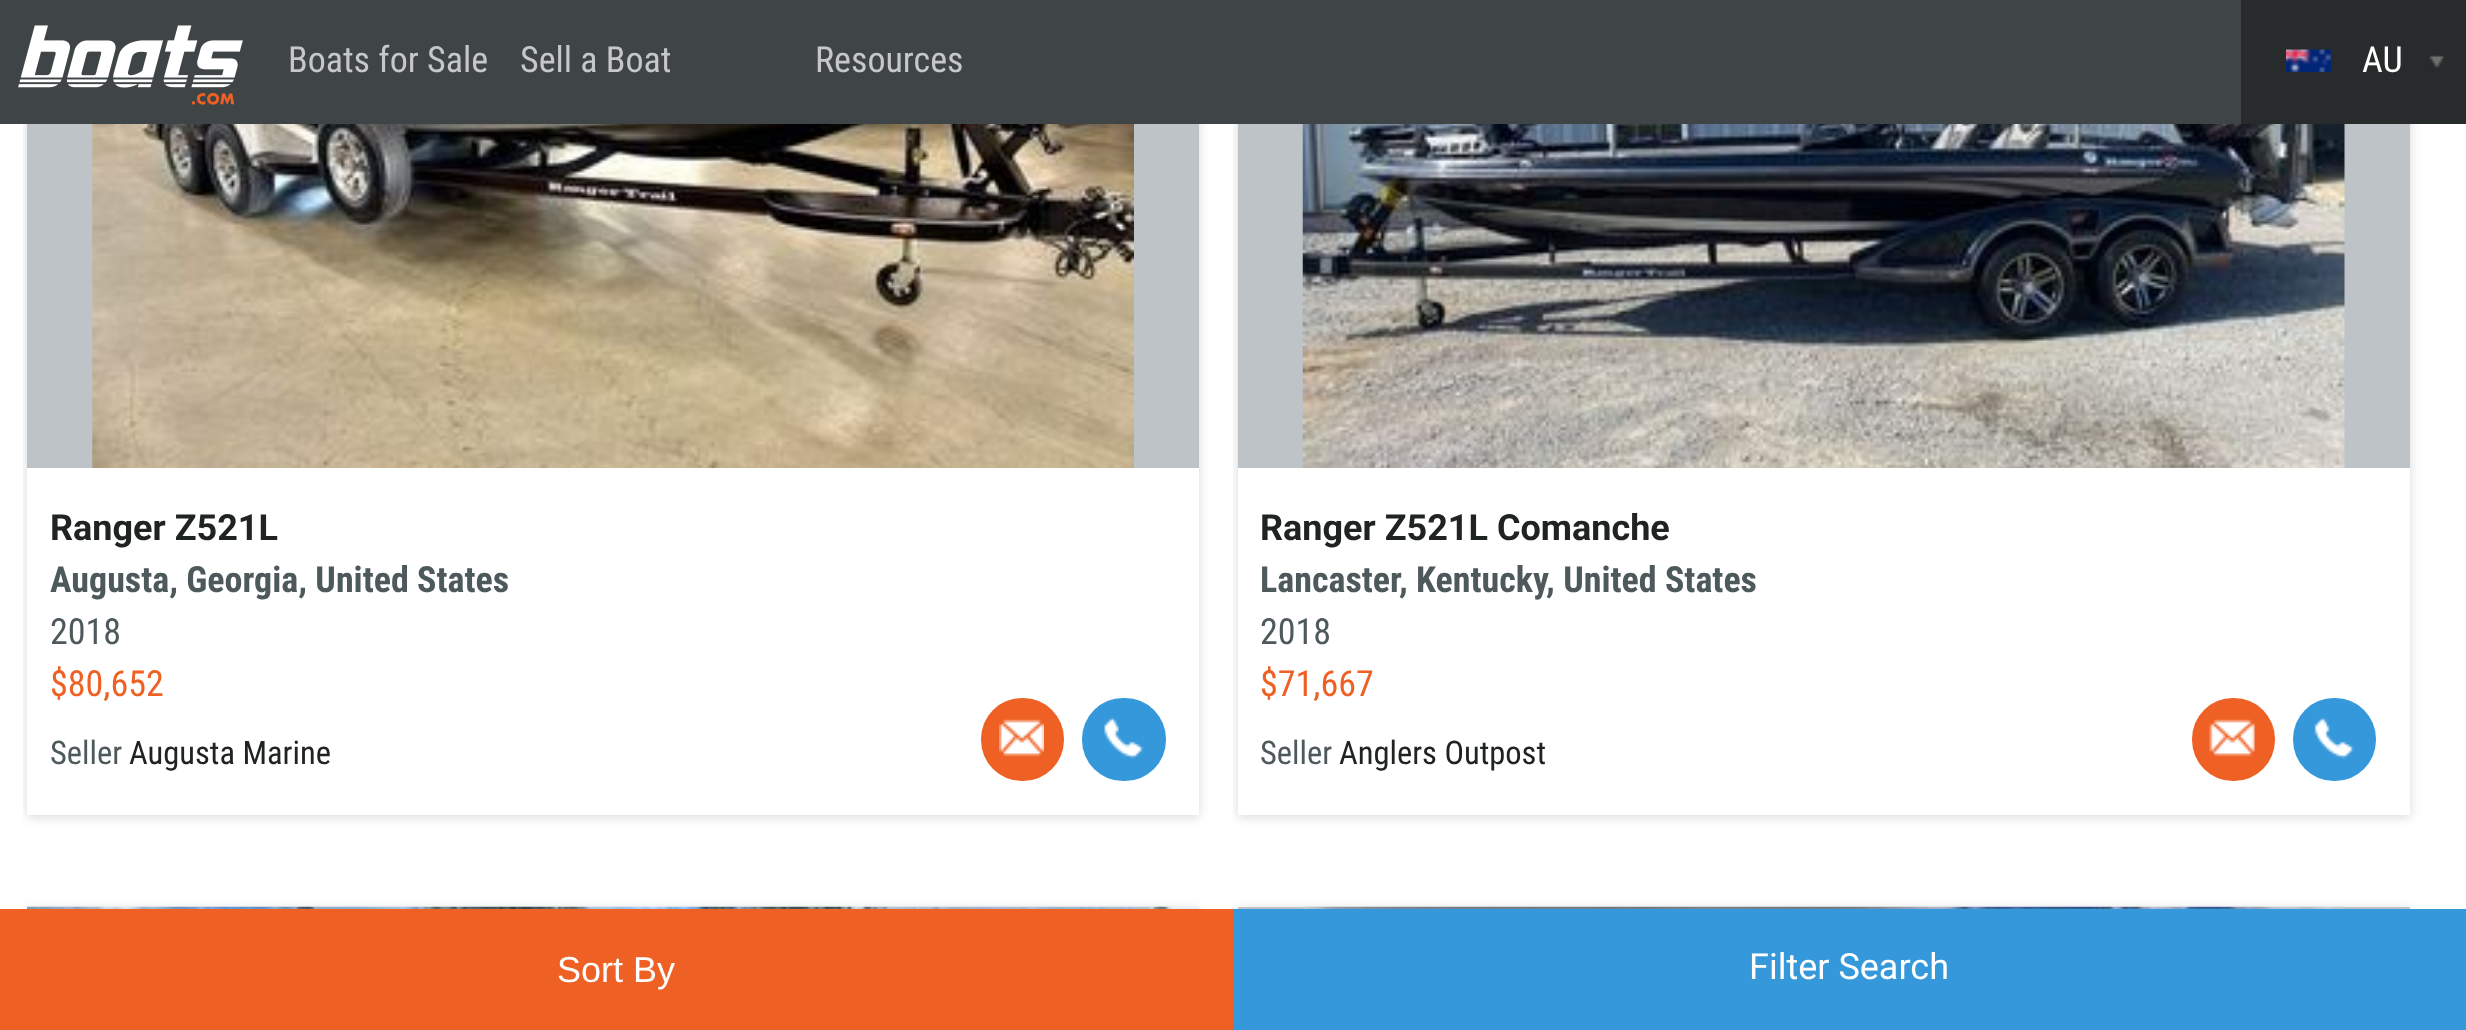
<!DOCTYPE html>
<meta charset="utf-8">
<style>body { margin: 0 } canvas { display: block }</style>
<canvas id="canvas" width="2466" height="1030"></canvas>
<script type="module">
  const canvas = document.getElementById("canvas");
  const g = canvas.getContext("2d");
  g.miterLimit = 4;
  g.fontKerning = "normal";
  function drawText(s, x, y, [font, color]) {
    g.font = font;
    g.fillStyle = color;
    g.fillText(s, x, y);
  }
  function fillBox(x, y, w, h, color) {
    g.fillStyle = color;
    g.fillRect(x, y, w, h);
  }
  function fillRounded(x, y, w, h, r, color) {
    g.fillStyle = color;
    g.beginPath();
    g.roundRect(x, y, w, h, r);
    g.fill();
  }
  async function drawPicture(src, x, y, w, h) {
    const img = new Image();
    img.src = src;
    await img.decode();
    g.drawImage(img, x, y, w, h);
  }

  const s1 = ["36px Roboto Condensed", "#C6C8C8"];
  const s2 = ["36px Roboto Condensed", "#FFFFFF"];
  const s3 = ["bold 36px Roboto", "#202323"];
  const s4 = ["bold 36px Roboto Condensed", "#4E595C"];
  const s5 = ["36px Roboto Condensed", "#4E595C"];
  const s6 = ["36px Roboto Condensed", "#EF6024"];
  const s7 = ["32.5px Roboto Condensed", "#4E595C"];
  const s8 = ["32.5px Roboto Condensed", "#202323"];
  const s9 = ["36px Liberation Sans", "#FFFFFF"];
  const s10 = ["36px Roboto", "#FFFFFF"];

  fillBox(0, 0, 2466, 1030, "#FFFFFF");
  g.save();
  g.beginPath();
  g.rect(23, 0, 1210, 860);
  g.clip();
  g.fillStyle = "rgba(0, 0, 0, 0.15)";
  g.filter = "blur(5.5px)";
  g.beginPath();
  g.rect(27, -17, 1172, 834);
  g.fill();
  g.filter = "none";
  g.restore();
  g.save();
  g.beginPath();
  g.rect(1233, 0, 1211, 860);
  g.clip();
  g.fillStyle = "rgba(0, 0, 0, 0.15)";
  g.filter = "blur(5.5px)";
  g.beginPath();
  g.rect(1238, -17, 1172, 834);
  g.fill();
  g.filter = "none";
  g.restore();
  fillBox(0, 0, 2241, 124, "#3F4546");
  await drawPicture("pic1.png", 18, 25, 225, 80);
  drawText("Boats for Sale", 288, 72, s1);
  drawText("Sell a Boat", 520, 72, s1);
  drawText("Resources", 815, 72, s1);
  fillBox(2241, 0, 225, 124, "#272B2B");
  await drawPicture("pic2.png", 2286, 49, 45, 23);
  drawText("AU", 2362, 72, s2);
  await drawPicture("pic3.png", 2429, 55, 15, 13);
  fillBox(27, 124, 1172, 344, "#BDC3C7");
  await drawPicture("pic4.png", 92, 124, 1042, 344);
  fillBox(27, 468, 1172, 347, "#FFFFFF");
  drawText("Ranger Z521L", 50, 540, s3);
  drawText("Augusta, Georgia, United States", 50, 592, s4);
  drawText("2018", 50, 644, s5);
  drawText("$80,652", 50, 696, s6);
  drawText("Seller", 50, 764, s7);
  drawText("Augusta Marine", 129, 764, s8);
  fillRounded(981, 698, 83, 83, 41, "#EF6024");
  await drawPicture("pic5.png", 999, 719, 45, 38);
  fillRounded(1082, 698, 84, 83, 41, "#3598DB");
  await drawPicture("pic6.png", 1104, 717, 40, 42);
  fillBox(1238, 124, 1172, 344, "#BDC3C7");
  await drawPicture("pic7.png", 1302, 124, 1043, 344);
  fillBox(1238, 468, 1172, 347, "#FFFFFF");
  drawText("Ranger Z521L Comanche", 1260, 540, s3);
  drawText("Lancaster, Kentucky, United States", 1260, 592, s4);
  drawText("2018", 1260, 644, s5);
  drawText("$71,667", 1260, 696, s6);
  drawText("Seller", 1260, 764, s7);
  drawText("Anglers Outpost", 1339, 764, s8);
  fillRounded(2192, 698, 83, 83, 41, "#EF6024");
  await drawPicture("pic8.png", 2209, 719, 46, 38);
  fillRounded(2293, 698, 83, 83, 41, "#3598DB");
  await drawPicture("pic9.png", 2314, 717, 40, 42);
  g.fillStyle = "rgba(0, 0, 0, 0.15)";
  g.filter = "blur(5.5px)";
  g.beginPath();
  g.rect(27, 909, 1172, 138);
  g.fill();
  g.filter = "none";
  await drawPicture("pic10.png", 27, 906, 1173, 3);
  g.filter = "blur(5.5px)";
  g.beginPath();
  g.rect(1238, 909, 1172, 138);
  g.fill();
  g.filter = "none";
  fillBox(1238, 907, 1172, 2, "#BDC3C7");
  await drawPicture("pic11.png", 1302, 906, 1043, 3);
  fillBox(0, 909, 1233, 121, "#EF6024");
  drawText("Sort By", 557, 982, s9);
  fillBox(1233, 909, 1233, 121, "#3598DB");
  drawText("Filter Search", 1749, 979, s10);
</script>
